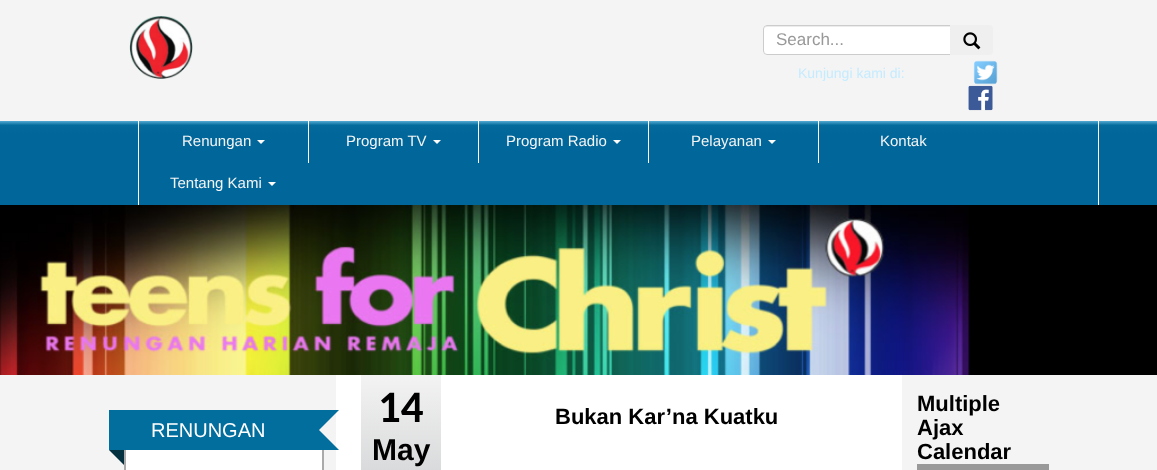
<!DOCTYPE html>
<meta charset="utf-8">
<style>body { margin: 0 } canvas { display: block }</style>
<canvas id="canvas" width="1157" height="470"></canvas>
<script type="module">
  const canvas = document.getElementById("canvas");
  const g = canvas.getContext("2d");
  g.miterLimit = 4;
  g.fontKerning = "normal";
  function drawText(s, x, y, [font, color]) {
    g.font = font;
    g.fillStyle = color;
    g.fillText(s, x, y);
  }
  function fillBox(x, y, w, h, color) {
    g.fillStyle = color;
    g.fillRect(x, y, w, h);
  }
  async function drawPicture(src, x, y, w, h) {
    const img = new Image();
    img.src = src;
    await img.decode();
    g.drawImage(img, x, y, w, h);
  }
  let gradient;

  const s1 = ["17px Liberation Sans", "#999999"];
  const s2 = ["14px Liberation Sans", "#C5EBFF"];
  const s3 = ["15px Liberation Sans", "#F4F4F4"];
  const s4 = ["20px Liberation Sans", "#FFFFFF"];
  const s5 = ["bold 45px Carlito", "#000000"];
  const s6 = ["bold 30px Liberation Sans", "#000000"];
  const s7 = ["bold 22px Liberation Sans", "#000000"];

  fillBox(0, 0, 1157, 470, "#F4F4F4");
  await drawPicture("pic1.png", 129, 16, 64, 63);
  g.fillStyle = "#FFFFFF";
  g.beginPath();
  g.roundRect(763, 25, 188, 30, [4, 0, 0, 4]);
  g.fill();
  g.fillStyle = "#ECECEC";
  g.beginPath();
  g.moveTo(767, 27);
  g.lineTo(950, 27);
  g.lineTo(950, 26);
  g.lineTo(767, 26);
  g.bezierCurveTo(765, 26, 764, 28, 764, 30);
  g.bezierCurveTo(764, 28, 765, 27, 767, 27);
  g.closePath();
  g.fill();
  g.beginPath();
  g.roundRect(763.5, 25.5, 187, 29, [3.5, 0, 0, 3.5]);
  g.strokeStyle = "#CCCCCC";
  g.stroke();
  drawText("Search...", 776, 45, s1);
  g.fillStyle = "#EFEFEF";
  g.beginPath();
  g.roundRect(950, 25, 43, 30, [0, 4, 4, 0]);
  g.fill();
  await drawPicture("pic2.png", 963, 32, 18, 18);
  drawText("Kunjungi kami di:", 798, 78, s2);
  await drawPicture("pic3.png", 973, 60, 25, 25);
  await drawPicture("pic4.png", 968, 85, 25, 26);
  fillBox(0, 125, 1157, 9, "#01679B");
  gradient = g.createLinearGradient(579, 121, 579, 205);
  gradient.addColorStop(0, "#53ABD2");
  gradient.addColorStop(0.05, "#046C9C");
  gradient.addColorStop(0.1, "rgba(3, 104, 154, 0.86)");
  gradient.addColorStop(0.16, "#01679B");
  gradient.addColorStop(1, "#01679B");
  g.fillStyle = gradient;
  g.fillRect(0, 121, 1157, 84);
  fillBox(1098, 121, 1, 84, "#FFFFFF");
  fillBox(138, 121, 1, 84, "#FFFFFF");
  drawText("Renungan", 182, 146, s3);
  g.fillStyle = "#FDFDFD";
  g.beginPath();
  g.moveTo(257, 140);
  g.lineTo(265, 140);
  g.lineTo(261, 144);
  g.closePath();
  g.fill();
  fillBox(308, 121, 1, 42, "#FFFFFF");
  drawText("Program TV", 346, 146, s3);
  g.fillStyle = "#FDFDFD";
  g.beginPath();
  g.moveTo(433, 140);
  g.lineTo(441, 140);
  g.lineTo(437, 144);
  g.closePath();
  g.fill();
  fillBox(478, 121, 1, 42, "#FFFFFF");
  drawText("Program Radio", 506, 146, s3);
  g.fillStyle = "#FDFDFD";
  g.beginPath();
  g.moveTo(613, 140);
  g.lineTo(621, 140);
  g.lineTo(617, 144);
  g.closePath();
  g.fill();
  fillBox(648, 121, 1, 42, "#FFFFFF");
  drawText("Pelayanan", 691, 146, s3);
  g.fillStyle = "#FDFDFD";
  g.beginPath();
  g.moveTo(768, 140);
  g.lineTo(776, 140);
  g.lineTo(772, 144);
  g.closePath();
  g.fill();
  fillBox(818, 121, 1, 42, "#FFFFFF");
  drawText("Kontak", 880, 146, s3);
  drawText("Tentang Kami", 170, 188, s3);
  g.fillStyle = "#FDFDFD";
  g.beginPath();
  g.moveTo(268, 182);
  g.lineTo(276, 182);
  g.lineTo(272, 186);
  g.closePath();
  g.fill();
  await drawPicture("pic5.png", 0, 205, 1157, 170);
  g.fillStyle = "#043140";
  g.beginPath();
  g.moveTo(129, 430);
  g.lineTo(129, 470);
  g.lineTo(109, 450);
  g.closePath();
  g.fill();
  fillBox(109, 410, 190, 40, "#016E9E");
  drawText("RENUNGAN", 151, 437, s4);
  fillBox(336, 375, 566, 95, "#FFFFFF");
  g.fillStyle = "#016E9E";
  g.beginPath();
  g.moveTo(299, 410);
  g.lineTo(339, 410);
  g.lineTo(319, 430);
  g.closePath();
  g.moveTo(339, 450);
  g.lineTo(299, 450);
  g.lineTo(319, 430);
  g.closePath();
  g.fill();
  fillBox(299, 410, 20, 40, "#016E9E");
  fillBox(126, 450, 196, 20, "#FFFFFF");
  fillBox(322, 450, 2, 20, "#AAAAAA");
  fillBox(124, 450, 2, 20, "#AAAAAA");
  gradient = g.createLinearGradient(401, 375, 401, 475);
  gradient.addColorStop(0, "#F3F3F3");
  gradient.addColorStop(1, "#D8D9DA");
  g.fillStyle = gradient;
  g.fillRect(361, 375, 80, 95);
  drawText("14", 378, 422, s5);
  drawText("May", 372, 460, s6);
  drawText("Bukan Kar’na Kuatku", 555, 424, s7);
  drawText("Multiple", 917, 411, s7);
  drawText("Ajax", 917, 435, s7);
  drawText("Calendar", 917, 459, s7);
  fillBox(917, 464, 132, 6, "#999999");
</script>
